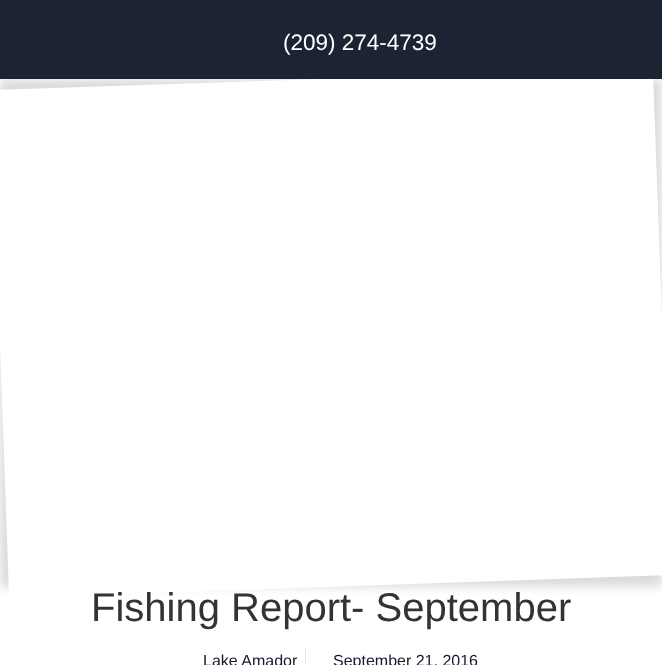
<!DOCTYPE html>
<meta charset="utf-8">
<style>body { margin: 0 } canvas { display: block }</style>
<canvas id="canvas" width="662" height="665"></canvas>
<script type="module">
  const canvas = document.getElementById("canvas");
  const g = canvas.getContext("2d");
  g.miterLimit = 4;
  g.fontKerning = "normal";
  function drawText(s, x, y, [font, color]) {
    g.font = font;
    g.fillStyle = color;
    g.fillText(s, x, y);
  }
  function fillBox(x, y, w, h, color) {
    g.fillStyle = color;
    g.fillRect(x, y, w, h);
  }

  const s1 = ["22.5px Liberation Sans", "#FFFFFF"];
  const s2 = ["40px Liberation Sans", "#333333"];
  const s3 = ["16px Liberation Sans", "#131B2C"];

  fillBox(0, 0, 662, 665, "#FFFFFF");
  fillBox(0, 0, 662, 79, "#1C2434");
  drawText("(209) 274-4739", 283, 50, s1);
  g.save();
  g.beginPath();
  g.rect(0, 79, 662, 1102);
  g.clip();
  g.fillStyle = "rgba(0, 0, 0, 0.14)";
  g.filter = "blur(5px)";
  g.beginPath();
  g.roundRect(0, 79, 662, 508, 4);
  g.fill();
  g.filter = "none";
  g.restore();
  g.save();
  g.beginPath();
  g.rect(0, 79, 662, 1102);
  g.clip();
  g.beginPath();
  g.moveTo(-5, 90);
  g.lineTo(649, 68);
  g.bezierCurveTo(651, 67, 653, 69, 653, 71);
  g.lineTo(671, 571);
  g.bezierCurveTo(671, 573, 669, 575, 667, 575);
  g.lineTo(13, 598);
  g.bezierCurveTo(11, 598, 9, 596, 9, 594);
  g.lineTo(-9, 95);
  g.bezierCurveTo(-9, 92, -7, 90, -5, 90);
  g.closePath();
  g.fill();
  g.restore();
  drawText("Fishing Report- September", 91, 621, s2);
  drawText("Lake Amador", 203, 666, s3);
  fillBox(305, 647, 1, 18, "#E8E8E8");
  drawText("September 21, 2016", 333, 666, s3);
</script>
